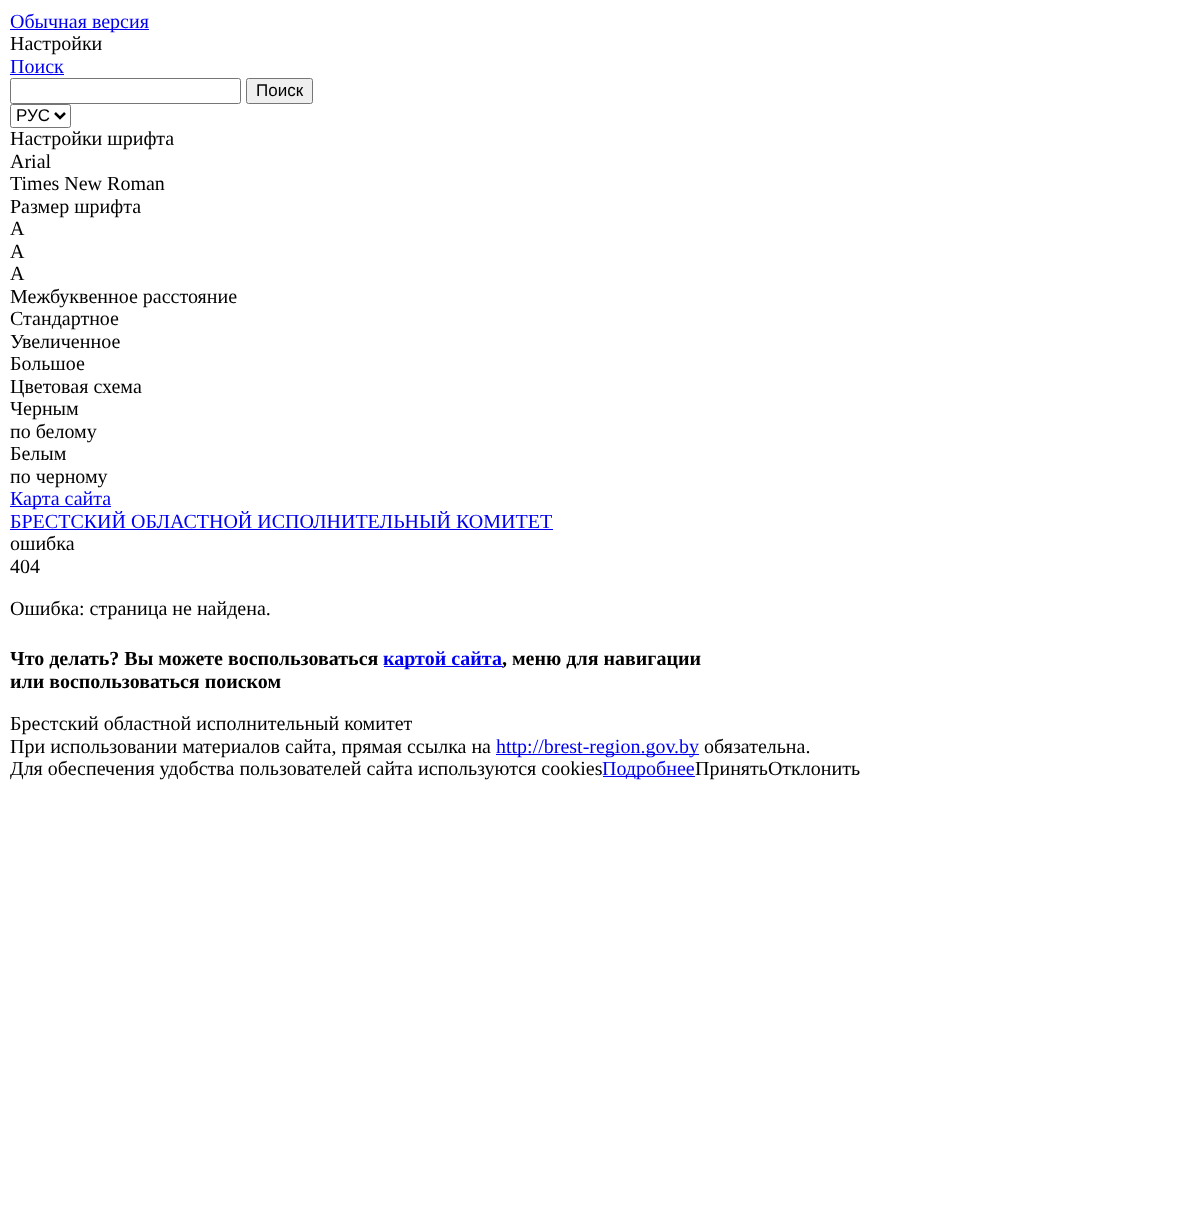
<!DOCTYPE html>
<meta charset="utf-8">
<style>body { margin: 0 } canvas { display: block }</style>
<canvas id="canvas" width="1192" height="1205"></canvas>
<script type="module">
  const canvas = document.getElementById("canvas");
  const g = canvas.getContext("2d");
  g.miterLimit = 4;
  g.fontKerning = "normal";
  function drawText(s, x, y, [font, color]) {
    g.font = font;
    g.fillStyle = color;
    g.fillText(s, x, y);
  }
  function fillBox(x, y, w, h, color) {
    g.fillStyle = color;
    g.fillRect(x, y, w, h);
  }

  const s1 = ["20px Liberation Serif", "#0000EE"];
  const s2 = ["20px Liberation Serif", "#000000"];
  const s3 = ["17px Liberation Sans", "#000000"];
  const s4 = ["bold 20px Liberation Serif", "#000000"];
  const s5 = ["bold 20px Liberation Serif", "#0000EE"];

  fillBox(0, 0, 1192, 1205, "#FFFFFF");
  fillBox(10, 29, 139, 1, "#0000EE");
  drawText("Обычная версия", 10, 28, s1);
  drawText("Настройки", 10, 50, s2);
  drawText("Поиск", 10, 73, s1);
  fillBox(10, 74, 54, 1, "#0000EE");
  g.beginPath();
  g.roundRect(10.5, 78.5, 230, 25, 2);
  g.strokeStyle = "#767676";
  g.stroke();
  g.fillStyle = "#EFEFEF";
  g.beginPath();
  g.roundRect(246.5, 78.5, 66, 25, 2);
  g.fill();
  g.stroke();
  drawText("Поиск", 256, 96, s3);
  g.beginPath();
  g.roundRect(10.5, 104.5, 60, 23, 2);
  g.stroke();
  g.beginPath();
  g.moveTo(55, 113);
  g.lineTo(60, 118);
  g.lineTo(65, 113);
  g.strokeStyle = "#000000";
  g.lineWidth = 2.5;
  g.stroke();
  drawText("РУС", 16, 121, s3);
  drawText("Настройки шрифта", 10, 145, s2);
  drawText("Arial", 10, 168, s2);
  drawText("Times New Roman", 10, 190, s2);
  drawText("Размер шрифта", 10, 213, s2);
  drawText("A", 10, 235, s2);
  drawText("A", 10, 258, s2);
  drawText("A", 10, 280, s2);
  drawText("Межбуквенное расстояние", 10, 303, s2);
  drawText("Стандартное", 10, 325, s2);
  drawText("Увеличенное", 10, 348, s2);
  drawText("Большое", 10, 370, s2);
  drawText("Цветовая схема", 10, 393, s2);
  drawText("Черным", 10, 415, s2);
  drawText("по белому", 10, 438, s2);
  drawText("Белым", 10, 460, s2);
  drawText("по черному", 10, 483, s2);
  fillBox(10, 506, 101, 1, "#0000EE");
  drawText("Карта сайта", 10, 505, s1);
  drawText("БРЕСТСКИЙ ОБЛАСТНОЙ ИСПОЛНИТЕЛЬНЫЙ КОМИТЕТ", 10, 528, s1);
  fillBox(10, 529, 543, 1, "#0000EE");
  drawText("ошибка", 10, 550, s2);
  drawText("404", 10, 573, s2);
  drawText("Ошибка: страница не найдена.", 10, 615, s2);
  drawText("Что делать? Вы можете воспользоваться", 10, 665, s4);
  fillBox(384, 666, 119, 1, "#0000EE");
  drawText("картой сайта", 383, 665, s5);
  drawText(", меню для навигации", 502, 665, s4);
  drawText("или воспользоваться поиском", 10, 688, s4);
  drawText("Брестский областной исполнительный комитет", 10, 730, s2);
  drawText("При использовании материалов сайта, прямая ссылка на", 10, 753, s2);
  fillBox(496, 754, 203, 1, "#0000EE");
  drawText("http://brest-region.gov.by", 496, 753, s1);
  drawText("обязательна.", 704, 753, s2);
  drawText("Для обеспечения удобства пользователей сайта используются cookies", 10, 775, s2);
  fillBox(603, 776, 92, 1, "#0000EE");
  drawText("Подробнее", 602, 775, s1);
  drawText("ПринятьОтклонить", 695, 775, s2);
</script>
